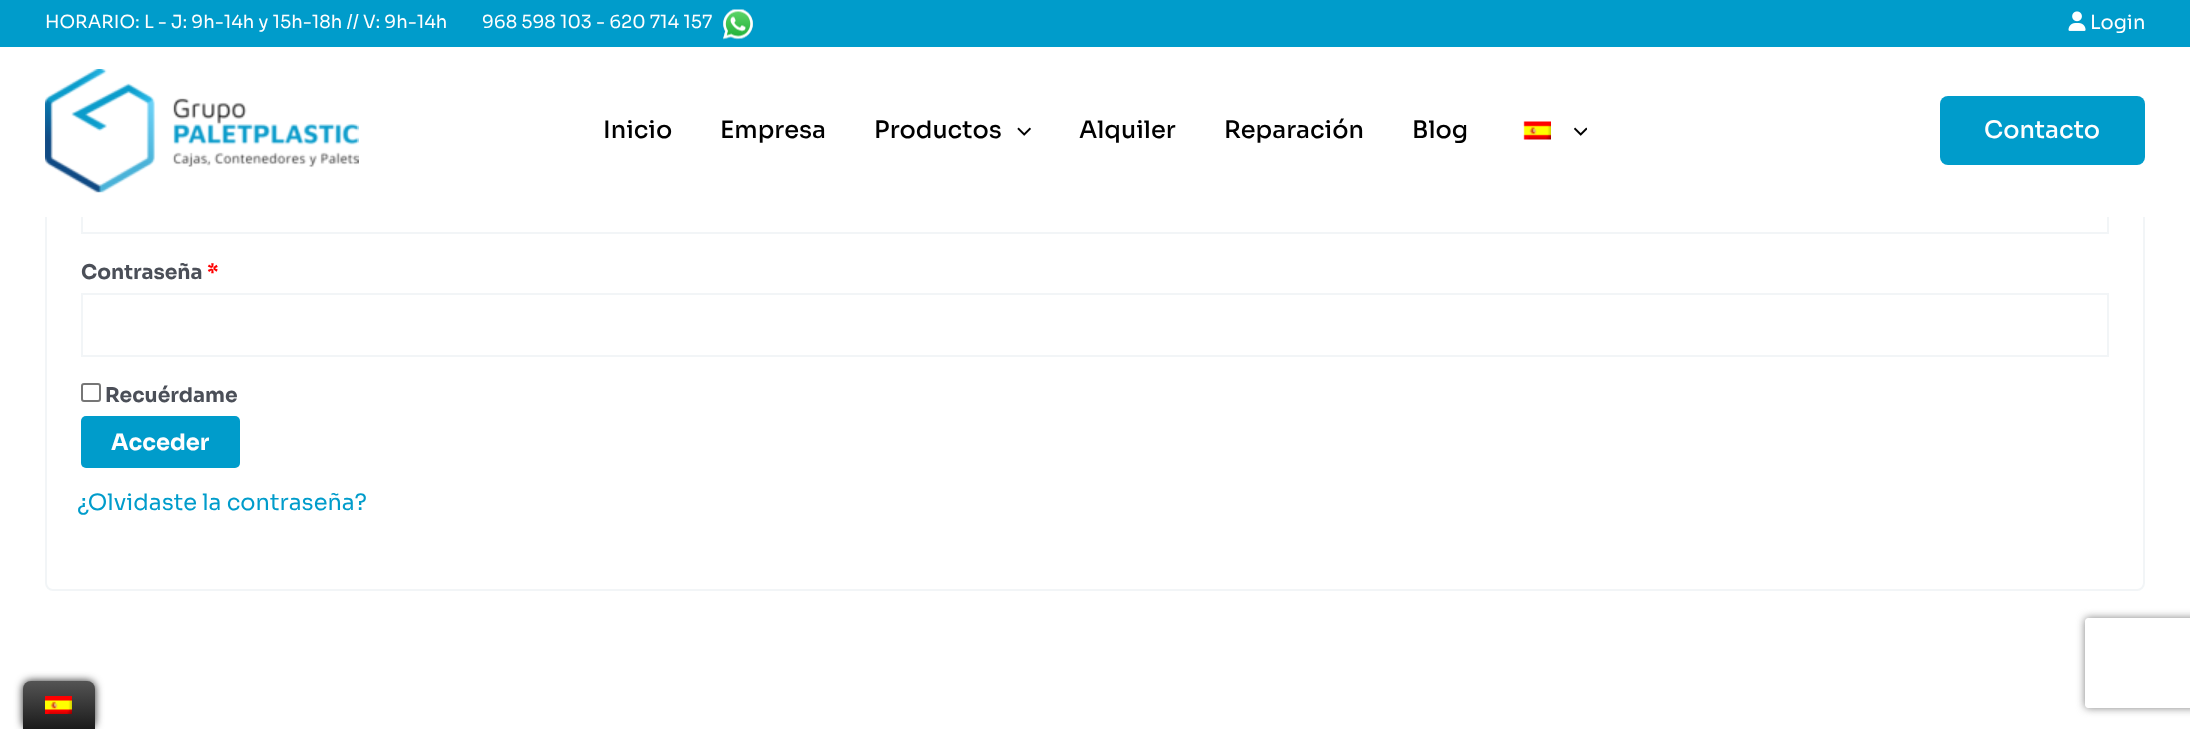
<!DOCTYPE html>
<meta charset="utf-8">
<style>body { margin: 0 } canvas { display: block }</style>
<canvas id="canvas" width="2190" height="729"></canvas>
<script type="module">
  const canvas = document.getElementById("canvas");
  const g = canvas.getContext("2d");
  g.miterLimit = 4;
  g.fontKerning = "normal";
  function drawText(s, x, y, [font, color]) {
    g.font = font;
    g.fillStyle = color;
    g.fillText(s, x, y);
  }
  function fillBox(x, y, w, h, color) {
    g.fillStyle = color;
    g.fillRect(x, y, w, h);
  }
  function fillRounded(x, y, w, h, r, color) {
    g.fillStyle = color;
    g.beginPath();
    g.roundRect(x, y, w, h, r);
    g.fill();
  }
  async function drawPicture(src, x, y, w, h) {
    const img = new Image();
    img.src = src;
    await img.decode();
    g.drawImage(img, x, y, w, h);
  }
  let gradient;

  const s1 = ["18px Sora", "#FFFEFE"];
  const s2 = ["19.5px Sora", "#FFFEFE"];
  const s3 = ["500 24px Sora", "#000000"];
  const s4 = ["500 24px Sora", "#FFFEFE"];
  const s5 = ["bold 20.25px Sora", "#4B4F58"];
  const s6 = ["bold 20.25px Sora", "#FF0000"];
  const s7 = ["bold 22.5px Sora", "#FFFEFE"];
  const s8 = ["22.5px Sora", "#009CCB"];

  fillBox(0, 0, 2190, 729, "#FFFFFF");
  fillBox(0, 0, 2190, 47, "#009CCB");
  drawText("HORARIO: L - J: 9h-14h y 15h-18h // V: 9h-14h", 45, 28, s1);
  drawText("968 598 103 - 620 714 157", 482, 28, s1);
  await drawPicture("pic1.png", 723, 9, 30, 31);
  await drawPicture("pic2.png", 2068, 11, 18, 20);
  drawText("Login", 2090, 29, s2);
  g.beginPath();
  g.roundRect(46, 93, 2098, 497, 7);
  g.strokeStyle = "#F2F5F7";
  g.lineWidth = 2;
  g.stroke();
  g.strokeRect(82, 169, 2026, 64);
  fillBox(45, 92, 2100, 125, "#FFFFFF");
  await drawPicture("pic3.png", 45, 69, 314, 124);
  drawText("Inicio", 603, 138, s3);
  drawText("Empresa", 720, 138, s3);
  drawText("Productos", 874, 138, s3);
  await drawPicture("pic4.png", 1017, 127, 14, 9);
  drawText("Alquiler", 1079, 138, s3);
  drawText("Reparación", 1224, 138, s3);
  drawText("Blog", 1412, 138, s3);
  await drawPicture("pic5.png", 1523, 121, 28, 19);
  await drawPicture("pic6.png", 1574, 127, 13, 9);
  fillRounded(1940, 96, 205, 69, 8, "#009CCB");
  drawText("Contacto", 1984, 138, s4);
  drawText("Contraseña", 81, 279, s5);
  drawText("*", 207, 279, s6);
  g.strokeRect(82, 294, 2026, 62);
  g.beginPath();
  g.roundRect(82, 384, 18, 17, 2);
  g.strokeStyle = "#767676";
  g.stroke();
  drawText("Recuérdame", 105, 402, s5);
  fillRounded(81, 416, 159, 52, 5, "#009CCB");
  drawText("Acceder", 111, 450, s7);
  drawText("¿Olvidaste la contraseña?", 77, 510, s8);
  g.fillStyle = "#212121";
  g.filter = "blur(4px)";
  g.beginPath();
  g.roundRect(23, 681, 72, 48, 8);
  g.fill();
  g.filter = "none";
  gradient = g.createLinearGradient(59, 729, 59, 681);
  gradient.addColorStop(0, "#1B1B1B");
  gradient.addColorStop(1, "#545454");
  g.fillStyle = gradient;
  g.beginPath();
  g.roundRect(23, 681, 72, 48, [8, 8, 0, 0]);
  g.fill();
  await drawPicture("pic7.png", 45, 696, 27, 18);
  g.save();
  g.beginPath();
  g.moveTo(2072, 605);
  g.lineTo(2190, 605);
  g.lineTo(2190, 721);
  g.lineTo(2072, 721);
  g.closePath();
  g.moveTo(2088, 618);
  g.lineTo(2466, 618);
  g.bezierCurveTo(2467.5, 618, 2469, 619.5, 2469, 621);
  g.lineTo(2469, 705);
  g.bezierCurveTo(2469, 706.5, 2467.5, 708, 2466, 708);
  g.lineTo(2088, 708);
  g.bezierCurveTo(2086.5, 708, 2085, 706.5, 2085, 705);
  g.lineTo(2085, 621);
  g.bezierCurveTo(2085, 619.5, 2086.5, 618, 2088, 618);
  g.closePath();
  g.clip("evenodd");
  g.fillStyle = "#808080";
  g.filter = "blur(4px)";
  g.beginPath();
  g.roundRect(2085, 618, 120, 90, 3);
  g.fill();
  g.filter = "none";
  g.restore();
</script>
